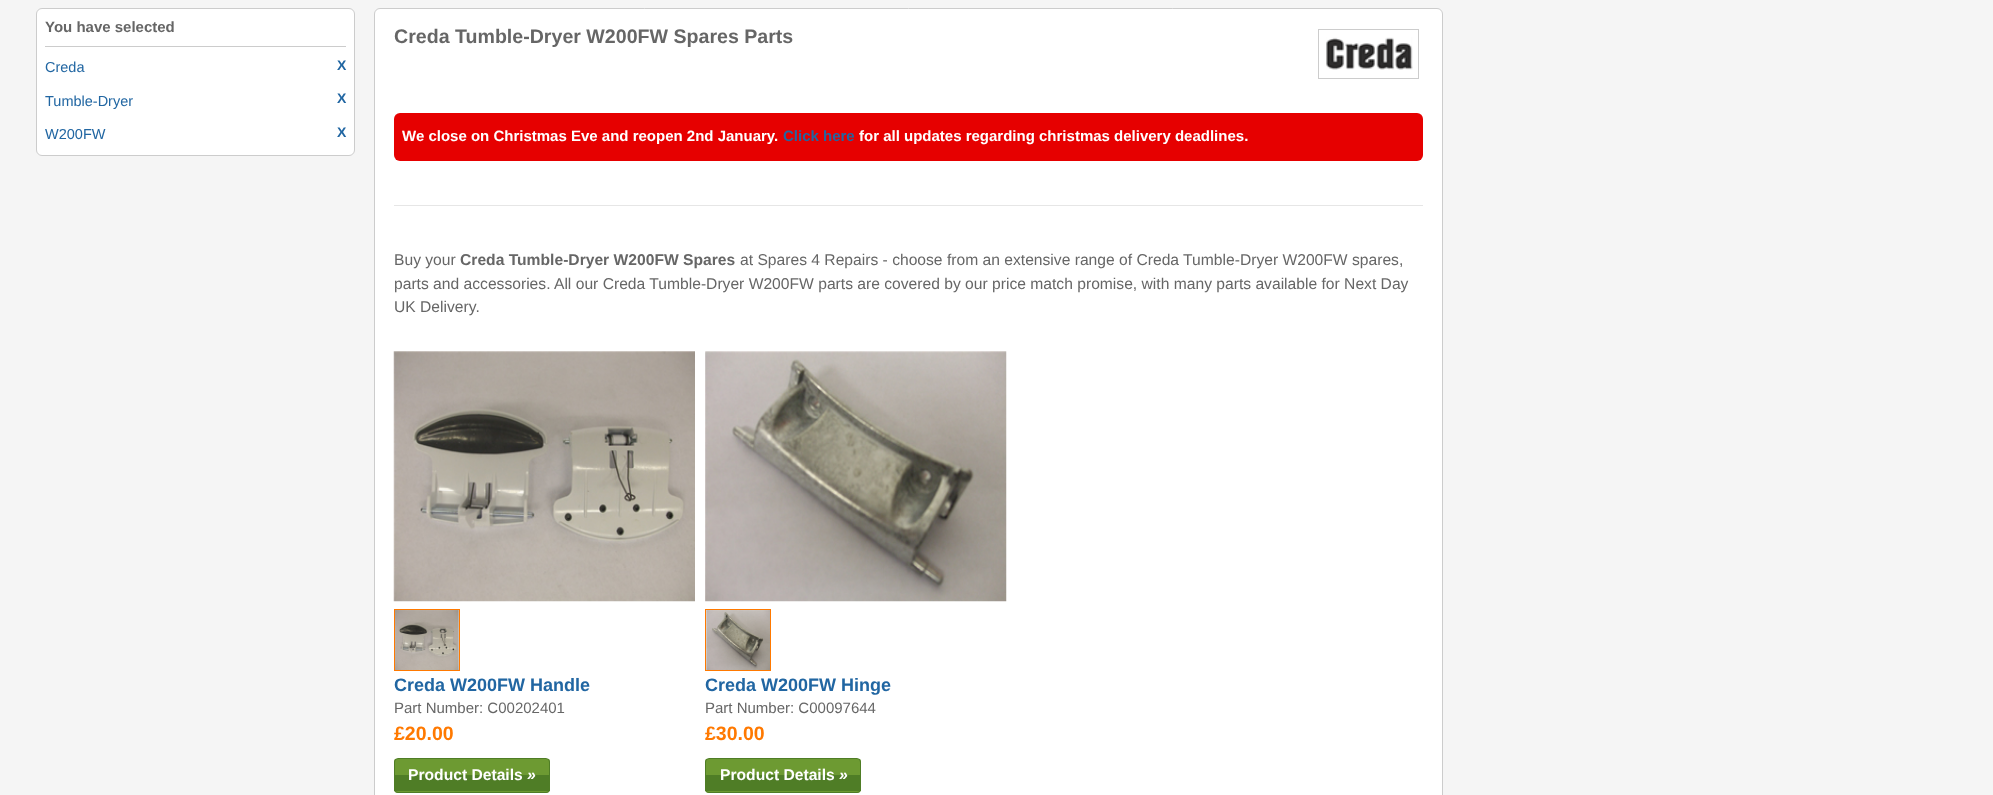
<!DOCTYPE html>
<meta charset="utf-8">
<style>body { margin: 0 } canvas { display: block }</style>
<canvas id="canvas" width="1993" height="795"></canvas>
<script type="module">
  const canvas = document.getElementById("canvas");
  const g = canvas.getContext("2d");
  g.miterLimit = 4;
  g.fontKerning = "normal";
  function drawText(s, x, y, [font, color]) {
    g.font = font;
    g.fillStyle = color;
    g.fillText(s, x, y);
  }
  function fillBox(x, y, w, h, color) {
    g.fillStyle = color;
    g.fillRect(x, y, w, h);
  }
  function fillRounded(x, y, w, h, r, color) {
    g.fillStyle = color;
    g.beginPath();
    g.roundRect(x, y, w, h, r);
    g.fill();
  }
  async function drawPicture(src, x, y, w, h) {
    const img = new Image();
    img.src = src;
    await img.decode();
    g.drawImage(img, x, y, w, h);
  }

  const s1 = ["bold 15px Liberation Sans", "#666666"];
  const s2 = ["14.5px Liberation Sans", "#2166A2"];
  const s3 = ["bold 14px Liberation Sans", "#2166A2"];
  const s4 = ["bold 19.6px Liberation Sans", "#666666"];
  const s5 = ["bold 15px Liberation Sans", "#FFFFFF"];
  const s6 = ["bold 15px Liberation Sans", "#2166A2"];
  const s7 = ["15.65px Liberation Sans", "#666666"];
  const s8 = ["bold 15.65px Liberation Sans", "#666666"];
  const s9 = ["bold 18px Liberation Sans", "#2166A2"];
  const s10 = ["15px Liberation Sans", "#666666"];
  const s11 = ["bold 19.5px Liberation Sans", "#FF7900"];
  const s12 = ["bold 15.65px Liberation Sans", "#FFFFFF"];
  const s13 = ["italic bold 15.65px Liberation Sans", "#FFFFFF"];

  fillBox(0, 0, 1993, 795, "#F5F5F5");
  g.fillStyle = "#FFFFFF";
  g.beginPath();
  g.roundRect(36.5, 8.5, 318, 147, 5.5);
  g.fill();
  g.strokeStyle = "#CCCCCC";
  g.stroke();
  fillBox(45, 46, 301, 1, "#CCCCCC");
  drawText("You have selected", 45, 32, s1);
  drawText("Creda", 45, 72, s2);
  drawText("X", 337, 70, s3);
  drawText("Tumble-Dryer", 45, 106, s2);
  drawText("X", 337, 103, s3);
  drawText("W200FW", 45, 139, s2);
  drawText("X", 337, 137, s3);
  g.fillStyle = "#FFFFFF";
  g.beginPath();
  g.roundRect(374.5, 8.5, 1068, 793, 5.5);
  g.fill();
  g.stroke();
  drawText("Creda Tumble-Dryer W200FW Spares Parts", 394, 43, s4);
  g.strokeRect(1318.5, 29.5, 100, 49);
  await drawPicture("pic1.png", 1326, 37, 87, 33);
  fillRounded(394, 113, 1029, 48, 6, "#E60000");
  drawText("We close on Christmas Eve and reopen 2nd January.", 402, 141, s5);
  drawText("Click here", 783, 141, s6);
  drawText("for all updates regarding christmas delivery deadlines.", 859, 141, s5);
  fillBox(394, 205, 1029, 1, "#E6E6E6");
  drawText("Buy your", 394, 265, s7);
  drawText("Creda Tumble-Dryer W200FW Spares", 460, 265, s8);
  drawText("at Spares 4 Repairs - choose from an extensive range of Creda Tumble-Dryer W200FW spares,", 740, 265, s7);
  drawText("parts and accessories. All our Creda Tumble-Dryer W200FW parts are covered by our price match promise, with many parts available for Next Day", 394, 289, s7);
  drawText("UK Delivery.", 394, 312, s7);
  await drawPicture("pic2.png", 393, 351, 302, 251);
  g.strokeStyle = "#FF7900";
  g.strokeRect(394.5, 609.5, 65, 61);
  await drawPicture("pic3.png", 395, 610, 64, 60);
  drawText("Creda W200FW Handle", 394, 691, s9);
  drawText("Part Number: C00202401", 394, 713, s10);
  drawText("£20.00", 394, 740, s11);
  g.save();
  g.beginPath();
  g.roundRect(394, 758, 156, 35, 4);
  g.clip();
  fillBox(394, 759, 156, 16, "#6D9A32");
  g.restore();
  fillBox(394, 775, 156, 16, "#4F7D26");
  g.save();
  g.beginPath();
  g.roundRect(394, 758, 156, 35, 4);
  g.clip();
  fillBox(394, 791, 156, 2, "#6D9A32");
  g.restore();
  g.beginPath();
  g.roundRect(394.5, 758.5, 155, 34, 3.5);
  g.strokeStyle = "#4F7D26";
  g.stroke();
  drawText("Product Details", 408, 780, s12);
  drawText("»", 527, 780, s13);
  await drawPicture("pic4.png", 705, 351, 302, 251);
  g.strokeStyle = "#FF7900";
  g.strokeRect(705.5, 609.5, 65, 61);
  await drawPicture("pic5.png", 706, 610, 64, 60);
  drawText("Creda W200FW Hinge", 705, 691, s9);
  drawText("Part Number: C00097644", 705, 713, s10);
  drawText("£30.00", 705, 740, s11);
  g.save();
  g.beginPath();
  g.roundRect(705, 758, 156, 35, 4);
  g.clip();
  fillBox(705, 759, 156, 16, "#6D9A32");
  g.restore();
  fillBox(705, 775, 156, 16, "#4F7D26");
  g.save();
  g.beginPath();
  g.roundRect(705, 758, 156, 35, 4);
  g.clip();
  fillBox(705, 791, 156, 2, "#6D9A32");
  g.restore();
  g.beginPath();
  g.roundRect(705.5, 758.5, 155, 34, 3.5);
  g.strokeStyle = "#4F7D26";
  g.stroke();
  drawText("Product Details", 720, 780, s12);
  drawText("»", 839, 780, s13);
</script>
